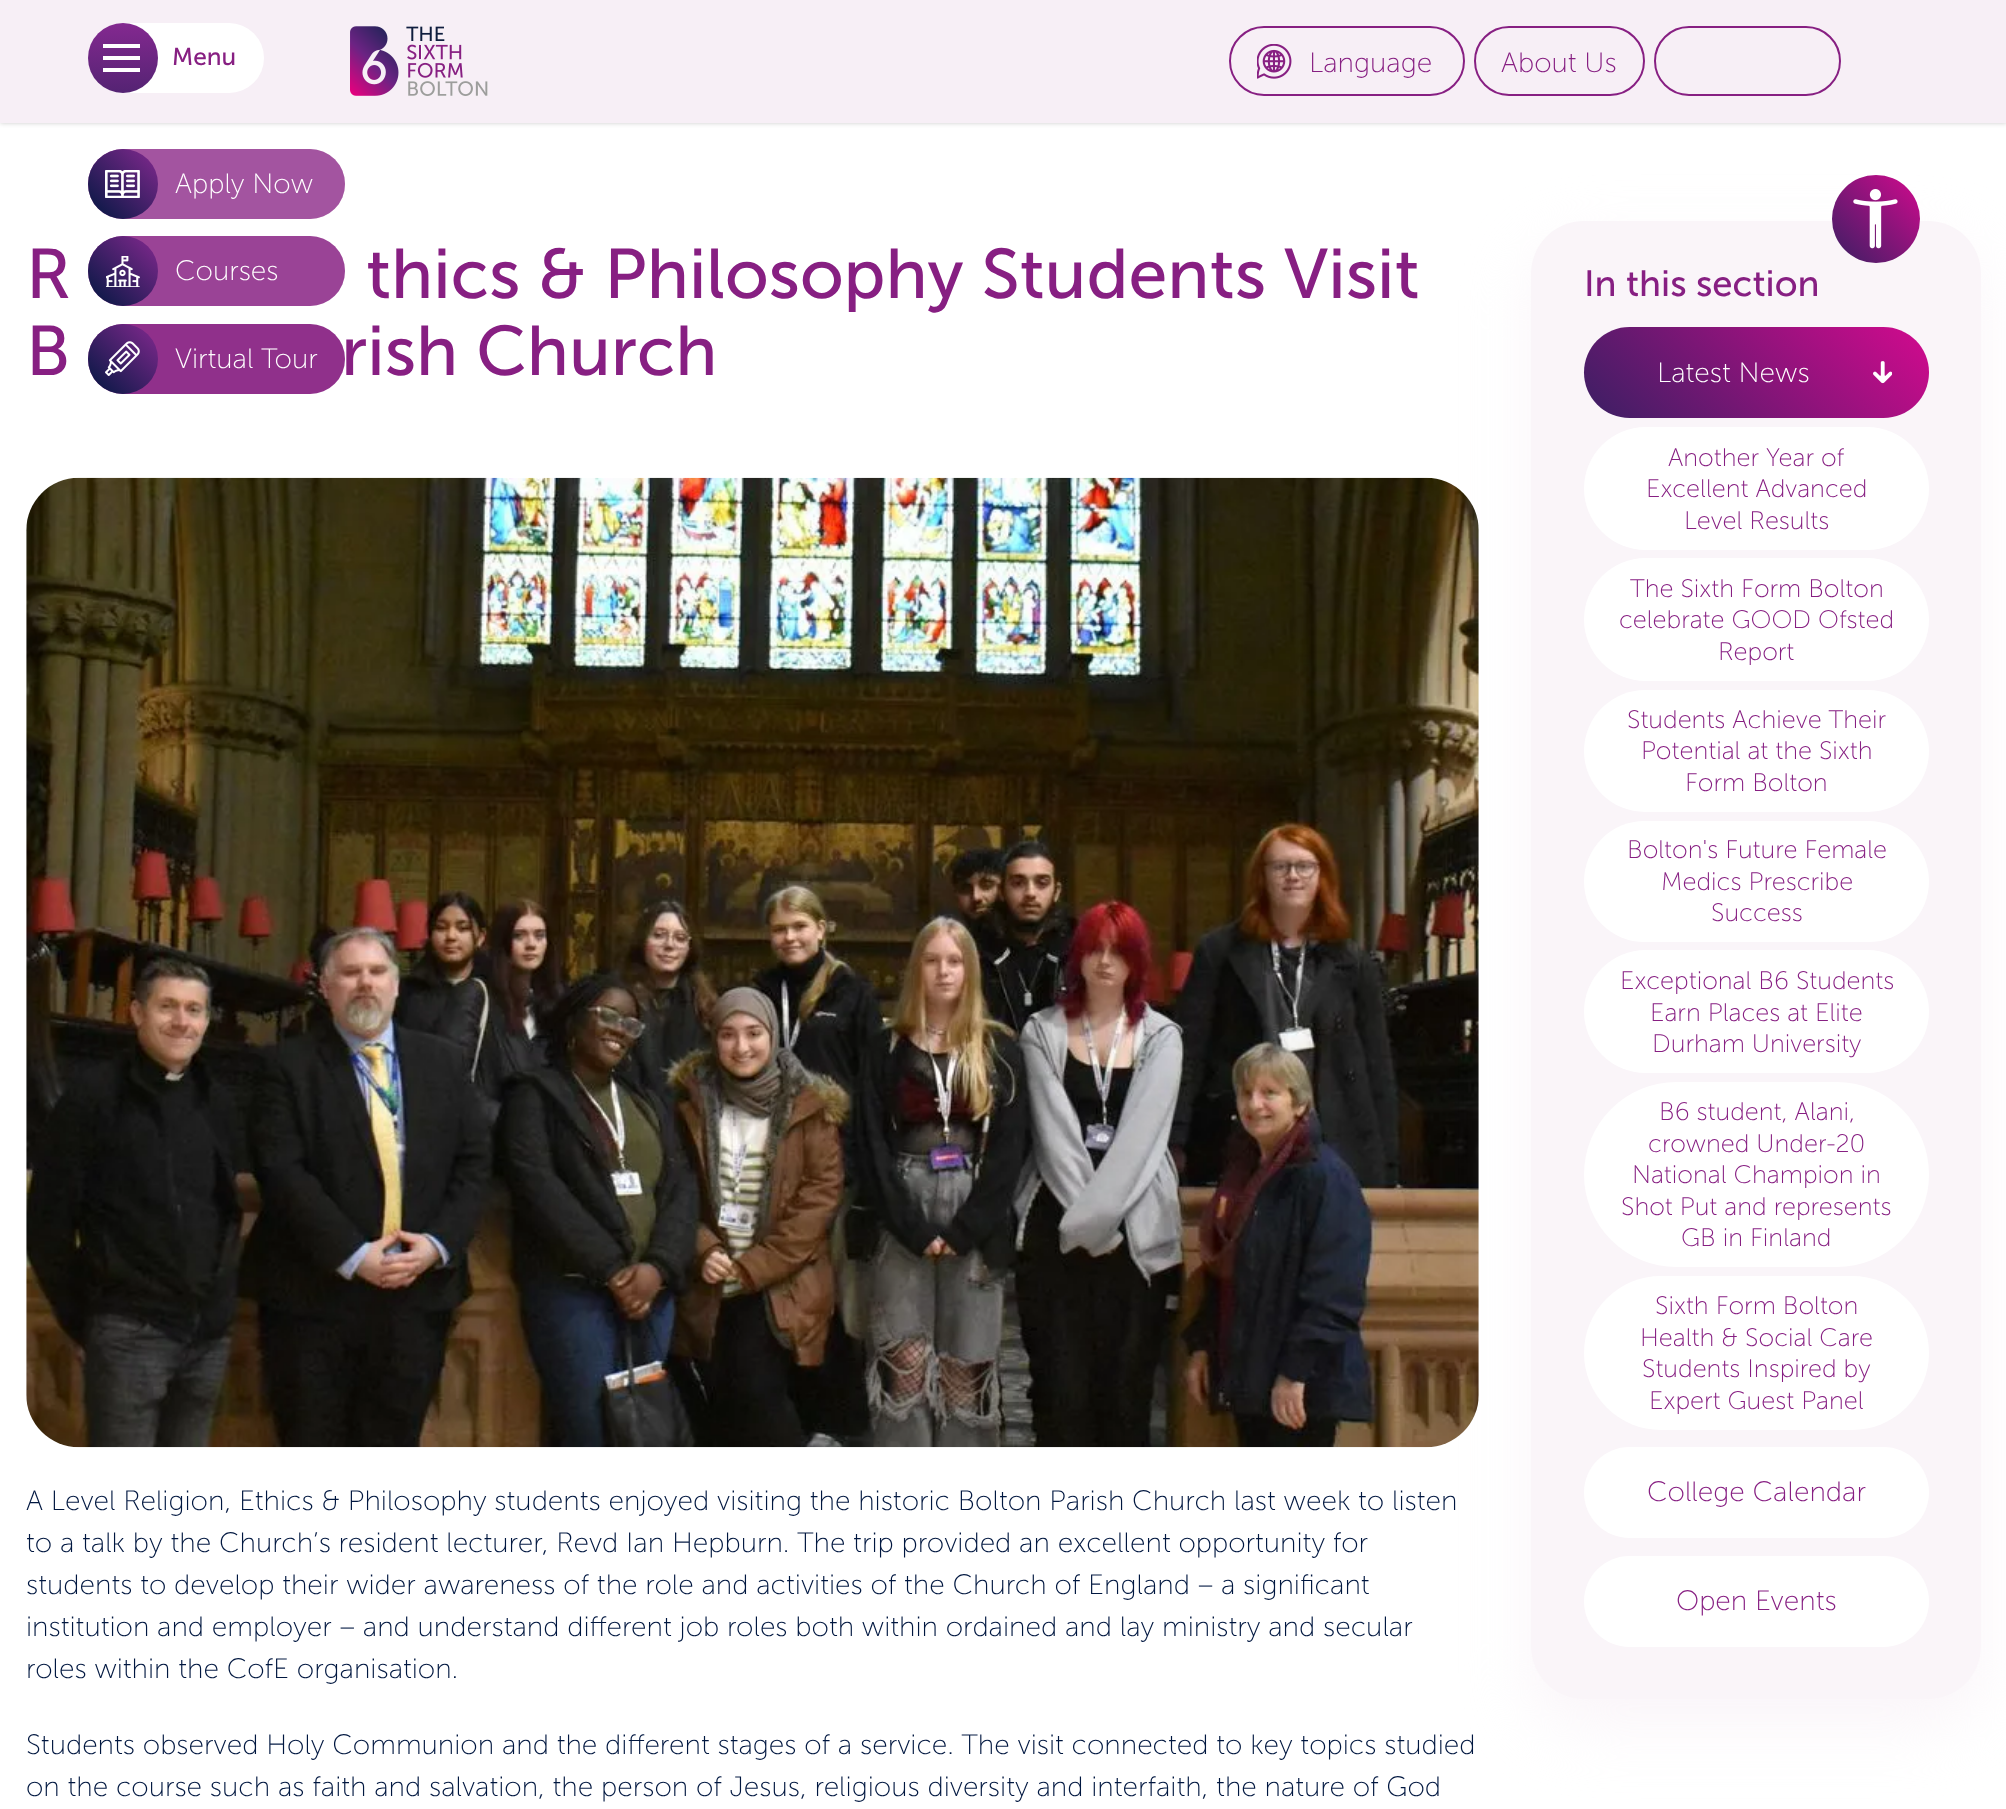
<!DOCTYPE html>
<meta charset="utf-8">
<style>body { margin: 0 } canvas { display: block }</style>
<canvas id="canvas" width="2006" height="1809"></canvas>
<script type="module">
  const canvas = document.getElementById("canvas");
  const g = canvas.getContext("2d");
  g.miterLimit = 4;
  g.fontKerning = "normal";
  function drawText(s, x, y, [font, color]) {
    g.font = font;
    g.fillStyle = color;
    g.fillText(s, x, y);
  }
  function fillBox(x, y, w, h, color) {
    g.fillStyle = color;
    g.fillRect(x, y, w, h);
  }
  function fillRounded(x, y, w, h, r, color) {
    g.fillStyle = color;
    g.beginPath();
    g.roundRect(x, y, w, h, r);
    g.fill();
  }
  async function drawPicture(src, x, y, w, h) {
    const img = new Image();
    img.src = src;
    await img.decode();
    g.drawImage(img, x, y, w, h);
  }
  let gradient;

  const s1 = ["24.5px Museo Sans", "#871F82"];
  const s2 = ["300 28px Museo Sans", "#FFFFFF"];
  const s3 = ["300 28px Museo Sans", "#871F82"];
  const s4 = ["70px Museo Sans", "#871F82"];
  const s5 = ["300 28px Museo Sans", "#001740"];
  const s6 = ["36.5px Museo Sans", "#871F82"];
  const s7 = ["300 25.25px Museo Sans", "#871F82"];

  fillBox(0, 0, 2006, 1809, "#FFFFFF");
  g.fillStyle = "rgba(0, 0, 0, 0.2)";
  g.filter = "blur(2.5px)";
  g.beginPath();
  g.rect(0, 0, 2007, 123);
  g.fill();
  g.filter = "none";
  fillBox(0, 0, 2006, 123, "#F7EFF6");
  fillRounded(89, 23, 175, 70, 35, "#FFFFFF");
  gradient = g.createLinearGradient(123, 23, 123, 93);
  gradient.addColorStop(0, "#842990");
  gradient.addColorStop(1, "#542373");
  g.fillStyle = gradient;
  g.beginPath();
  g.arc(123, 58, 35, 0, Math.PI * 2);
  g.fill();
  fillBox(103, 44, 37, 4, "#FFFFFF");
  fillBox(103, 68, 37, 4, "#FFFFFF");
  drawText("Menu", 172, 65, s1);
  fillBox(103, 56, 37, 4, "#FFFFFF");
  fillRounded(88, 149, 257, 70, 35, "#871F82");
  fillRounded(88, 149, 257, 70, 35, "rgba(255, 255, 255, 0.24)");
  gradient = g.createLinearGradient(158, 149, 88, 219);
  gradient.addColorStop(0, "#842990");
  gradient.addColorStop(1, "#001740");
  g.fillStyle = gradient;
  g.beginPath();
  g.arc(123, 184, 35, 0, Math.PI * 2);
  g.fill();
  await drawPicture("pic1.png", 105, 170, 35, 28);
  drawText("Apply Now", 175, 193, s2);
  fillRounded(88, 236, 257, 70, 35, "#871F82");
  fillRounded(88, 236, 257, 70, 35, "rgba(255, 255, 255, 0.16)");
  gradient = g.createLinearGradient(158, 236, 88, 306);
  gradient.addColorStop(0, "#842990");
  gradient.addColorStop(1, "#001740");
  g.fillStyle = gradient;
  g.beginPath();
  g.arc(123, 271, 35, 0, Math.PI * 2);
  g.fill();
  await drawPicture("pic2.png", 106, 256, 34, 31);
  drawText("Courses", 175, 280, s2);
  fillRounded(88, 324, 257, 70, 35, "#871F82");
  fillRounded(88, 324, 257, 70, 35, "rgba(255, 255, 255, 0.08)");
  gradient = g.createLinearGradient(158, 324, 88, 394);
  gradient.addColorStop(0, "#842990");
  gradient.addColorStop(1, "#001740");
  g.fillStyle = gradient;
  g.beginPath();
  g.arc(123, 359, 35, 0, Math.PI * 2);
  g.fill();
  await drawPicture("pic3.png", 105, 341, 35, 35);
  drawText("Virtual Tour", 175, 368, s2);
  await drawPicture("pic4.png", 350, 26, 138, 70);
  await drawPicture("pic5.png", 350, 26, 138, 70);
  g.beginPath();
  g.roundRect(1230, 27, 234, 68, 34);
  g.strokeStyle = "#871F82";
  g.lineWidth = 2;
  g.stroke();
  await drawPicture("pic6.png", 1257, 44, 35, 35);
  drawText("Language", 1309, 72, s3);
  g.beginPath();
  g.roundRect(1475, 27, 169, 68, 34);
  g.stroke();
  drawText("About Us", 1501, 72, s3);
  g.beginPath();
  g.roundRect(1655, 27, 185, 68, 34);
  g.stroke();
  await drawPicture("pic8.png", 26, 477, 1453, 971);
  g.fillStyle = "#FAF5F9";
  g.filter = "blur(30.5px)";
  g.beginPath();
  g.roundRect(1531, 247, 450, 1479, 53);
  g.fill();
  g.filter = "none";
  fillRounded(1531, 221, 450, 1478, 53, "#FAF5F9");
  gradient = g.createLinearGradient(1832, 263, 1920, 175);
  gradient.addColorStop(0, "#3A1F63");
  gradient.addColorStop(1, "#D20A8E");
  g.fillStyle = gradient;
  g.beginPath();
  g.arc(1876, 219, 44, 0, Math.PI * 2);
  g.fill();
  await drawPicture("pic7.png", 1853, 189, 45, 60);
  drawText("R", 26, 298, s4);
  drawText("thics & Philosophy Students Visit", 366, 298, s4);
  drawText("B", 26, 375, s4);
  drawText("rish Church", 341, 375, s4);
  drawText("A Level Religion, Ethics & Philosophy students enjoyed visiting the historic Bolton Parish Church last week to listen", 26, 1510, s5);
  drawText("to a talk by the Church’s resident lecturer, Revd Ian Hepburn. The trip provided an excellent opportunity for", 26, 1552, s5);
  drawText("students to develop their wider awareness of the role and activities of the Church of England – a significant", 26, 1594, s5);
  drawText("institution and employer – and understand different job roles both within ordained and lay ministry and secular", 26, 1636, s5);
  drawText("roles within the CofE organisation.", 26, 1678, s5);
  drawText("Students observed Holy Communion and the different stages of a service. The visit connected to key topics studied", 26, 1754, s5);
  drawText("on the course such as faith and salvation, the person of Jesus, religious diversity and interfaith, the nature of God", 26, 1796, s5);
  drawText("In this section", 1584, 296, s6);
  gradient = g.createLinearGradient(1647, 482, 1865, 264);
  gradient.addColorStop(0, "#3A1F63");
  gradient.addColorStop(1, "#D20A8E");
  g.fillStyle = gradient;
  g.beginPath();
  g.roundRect(1584, 327, 345, 91, 45.5);
  g.fill();
  drawText("Latest News", 1657, 382, s2);
  await drawPicture("pic9.png", 1873, 361, 20, 23);
  fillRounded(1584, 427, 345, 123, 61.5, "#FFFFFF");
  drawText("Another Year of", 1668, 466, s7);
  drawText("Excellent Advanced", 1646, 497, s7);
  drawText("Level Results", 1684, 529, s7);
  fillRounded(1584, 558, 345, 123, 61.5, "#FFFFFF");
  drawText("The Sixth Form Bolton", 1630, 597, s7);
  drawText("celebrate GOOD Ofsted", 1619, 628, s7);
  drawText("Report", 1718, 660, s7);
  fillRounded(1584, 690, 345, 122, 61, "#FFFFFF");
  drawText("Students Achieve Their", 1627, 728, s7);
  drawText("Potential at the Sixth", 1641, 759, s7);
  drawText("Form Bolton", 1685, 791, s7);
  fillRounded(1584, 821, 345, 121, 60.5, "#FFFFFF");
  drawText("Bolton's Future Female", 1627, 858, s7);
  drawText("Medics Prescribe", 1661, 890, s7);
  drawText("Success", 1711, 921, s7);
  fillRounded(1584, 950, 345, 123, 61.5, "#FFFFFF");
  drawText("Exceptional B6 Students", 1620, 989, s7);
  drawText("Earn Places at Elite", 1650, 1021, s7);
  drawText("Durham University", 1652, 1052, s7);
  fillRounded(1584, 1082, 345, 185, 92.5, "#FFFFFF");
  drawText("B6 student, Alani,", 1659, 1120, s7);
  drawText("crowned Under-20", 1648, 1152, s7);
  drawText("National Champion in", 1632, 1183, s7);
  drawText("Shot Put and represents", 1621, 1215, s7);
  drawText("GB in Finland", 1681, 1246, s7);
  fillRounded(1584, 1276, 345, 154, 77, "#FFFFFF");
  drawText("Sixth Form Bolton", 1655, 1314, s7);
  drawText("Health & Social Care", 1640, 1346, s7);
  drawText("Students Inspired by", 1642, 1377, s7);
  drawText("Expert Guest Panel", 1649, 1409, s7);
  fillRounded(1584, 1447, 345, 91, 45.5, "#FFFFFF");
  drawText("College Calendar", 1647, 1501, s3);
  fillRounded(1584, 1556, 345, 91, 45.5, "#FFFFFF");
  drawText("Open Events", 1676, 1610, s3);
</script>
